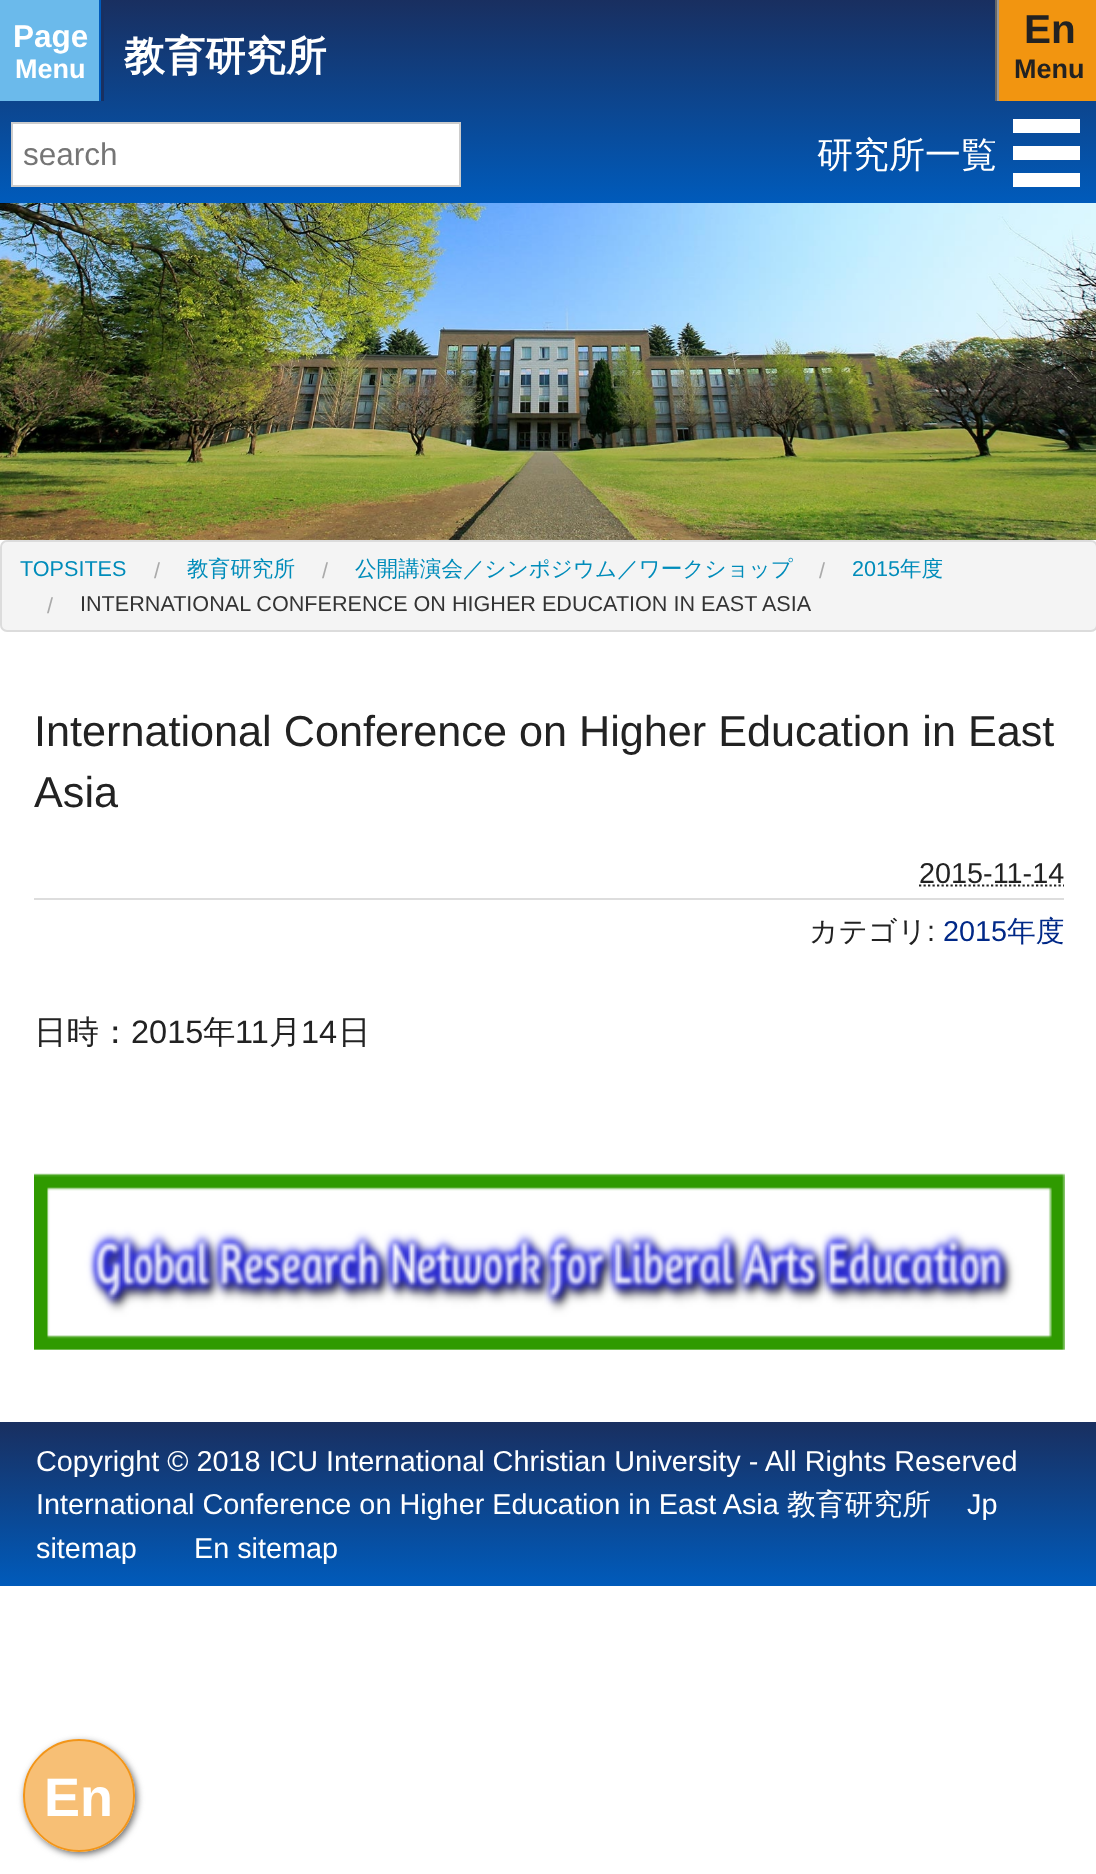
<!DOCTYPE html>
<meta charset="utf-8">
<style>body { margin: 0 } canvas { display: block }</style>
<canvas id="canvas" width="1096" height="1874"></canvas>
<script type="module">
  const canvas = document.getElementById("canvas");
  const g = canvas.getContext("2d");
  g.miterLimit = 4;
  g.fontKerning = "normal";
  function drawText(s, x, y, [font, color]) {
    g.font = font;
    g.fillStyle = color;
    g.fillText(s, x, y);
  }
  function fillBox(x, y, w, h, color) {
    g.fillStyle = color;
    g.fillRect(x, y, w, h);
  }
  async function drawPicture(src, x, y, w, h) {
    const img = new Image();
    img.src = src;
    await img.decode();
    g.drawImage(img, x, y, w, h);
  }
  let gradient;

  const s1 = ["bold 31.5px Liberation Sans", "#FFFFFF"];
  const s2 = ["bold 27px Liberation Sans", "#FFFFFF"];
  const s3 = ["bold 40.5px WenQuanYi Zen Hei", "#FFFFFF"];
  const s4 = ["bold 40.5px Liberation Sans", "#222222"];
  const s5 = ["bold 27px Liberation Sans", "#222222"];
  const s6 = ["31.5px Liberation Sans", "#757575"];
  const s7 = ["500 36px WenQuanYi Zen Hei", "#FFFFFF"];
  const s8 = ["21.6px Liberation Sans", "#008CBA"];
  const s9 = ["21.6px Liberation Sans", "#AAAAAA"];
  const s10 = ["500 21.6px WenQuanYi Zen Hei", "#008CBA"];
  const s11 = ["21.6px Liberation Sans", "#333333"];
  const s12 = ["43.2px Liberation Sans", "#222222"];
  const s13 = ["28.8px Liberation Sans", "#222222"];
  const s14 = ["500 28.8px WenQuanYi Zen Hei", "#222222"];
  const s15 = ["28.8px Liberation Sans", "#002887"];
  const s16 = ["500 28.8px WenQuanYi Zen Hei", "#002887"];
  const s17 = ["500 32.5px WenQuanYi Zen Hei", "#222222"];
  const s18 = ["32.5px Liberation Sans", "#222222"];
  const s19 = ["28.8px Liberation Sans", "#FFFFFF"];
  const s20 = ["500 28.8px WenQuanYi Zen Hei", "#FFFFFF"];
  const s21 = ["bold 54px Liberation Sans", "#FFFFFF"];

  fillBox(0, 0, 1096, 1874, "#FFFFFF");
  gradient = g.createLinearGradient(549, 0, 549, 203);
  gradient.addColorStop(0, "#192F60");
  gradient.addColorStop(1, "#005BBB");
  g.fillStyle = gradient;
  g.fillRect(0, 0, 1096, 203);
  fillBox(101, 0, 3, 101, "#193061");
  fillBox(0, 0, 99, 101, "#6BBAEB");
  fillBox(99, 0, 2, 101, "#005BBB");
  drawText("Page", 13, 47, s1);
  drawText("Menu", 15, 78, s2);
  drawText("教育研究所", 124, 70, s3);
  fillBox(995, 0, 2, 101, "#666666");
  fillBox(999, 0, 97, 101, "#F29510");
  fillBox(997, 0, 2, 101, "#999999");
  drawText("En", 1024, 43, s4);
  drawText("Menu", 1014, 78, s5);
  g.fillStyle = "#FFFFFF";
  g.beginPath();
  g.rect(12, 123, 448, 63);
  g.fill();
  g.strokeStyle = "#CCCCCC";
  g.lineWidth = 2;
  g.stroke();
  drawText("search", 23, 165, s6);
  drawText("研究所一覧", 817, 167, s7);
  fillBox(1013, 146, 67, 14, "#FFFFFF");
  fillBox(1013, 119, 67, 14, "#FFFFFF");
  fillBox(1013, 173, 67, 14, "#FFFFFF");
  await drawPicture("pic1.png", 0, 203, 1096, 337);
  g.fillStyle = "#F4F4F4";
  g.beginPath();
  g.roundRect(1, 541, 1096, 90, 6);
  g.fill();
  g.strokeStyle = "#DCDCDC";
  g.stroke();
  drawText("TOPSITES", 20, 576, s8);
  drawText("/", 154, 578, s9);
  drawText("教育研究所", 187, 576, s10);
  drawText("/", 322, 578, s9);
  drawText("公開講演会／シンポジウム／ワークショップ", 355, 576, s10);
  drawText("/", 819, 578, s9);
  drawText("2015", 852, 576, s8);
  drawText("年度", 900, 576, s10);
  drawText("/", 47, 613, s9);
  drawText("INTERNATIONAL CONFERENCE ON HIGHER EDUCATION IN EAST ASIA", 80, 611, s11);
  drawText("International Conference on Higher Education in East", 34, 746, s12);
  drawText("Asia", 34, 807, s12);
  drawText("2015-11-14", 919, 883, s13);
  g.beginPath();
  g.moveTo(919, 885.5);
  g.lineTo(1064, 885.5);
  g.strokeStyle = "#222222";
  g.lineWidth = 2.2;
  g.setLineDash([2.25, 2.25]);
  g.stroke();
  fillBox(34, 898, 1030, 2, "#DDDDDD");
  drawText("カテゴリ", 809, 941, s14);
  drawText(":", 927, 941, s13);
  drawText("2015", 943, 941, s15);
  drawText("年度", 1007, 941, s16);
  drawText("日時：", 34, 1043, s17);
  drawText("2015", 131, 1043, s18);
  drawText("年", 203, 1043, s17);
  drawText("11", 235, 1043, s18);
  drawText("月", 269, 1043, s17);
  drawText("14", 301, 1043, s18);
  drawText("日", 338, 1043, s17);
  await drawPicture("pic2.png", 34, 1173, 1031, 177);
  gradient = g.createLinearGradient(549, 1422, 549, 1586);
  gradient.addColorStop(0, "#192F60");
  gradient.addColorStop(1, "#005BBB");
  g.fillStyle = gradient;
  g.fillRect(0, 1422, 1096, 164);
  drawText("Copyright © 2018 ICU International Christian University - All Rights Reserved", 36, 1471, s19);
  drawText("International Conference on Higher Education in East Asia", 36, 1514, s19);
  drawText("教育研究所", 787, 1514, s20);
  drawText("Jp", 967, 1514, s19);
  drawText("sitemap", 36, 1558, s19);
  drawText("En sitemap", 194, 1558, s19);
  g.save();
  g.beginPath();
  g.moveTo(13, 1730);
  g.lineTo(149, 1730);
  g.lineTo(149, 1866);
  g.lineTo(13, 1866);
  g.closePath();
  g.moveTo(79, 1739);
  g.bezierCurveTo(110, 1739, 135, 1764, 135, 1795);
  g.lineTo(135, 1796);
  g.bezierCurveTo(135, 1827, 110, 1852, 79, 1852);
  g.bezierCurveTo(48, 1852, 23, 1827, 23, 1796);
  g.lineTo(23, 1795);
  g.bezierCurveTo(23, 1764, 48, 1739, 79, 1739);
  g.closePath();
  g.clip("evenodd");
  g.fillStyle = "#666666";
  g.filter = "blur(3.5px)";
  g.beginPath();
  g.roundRect(25, 1742, 112, 112, 56);
  g.fill();
  g.filter = "none";
  g.restore();
  g.fillStyle = "rgba(242, 149, 25, 0.6)";
  g.beginPath();
  g.roundRect(24, 1740, 110, 111, 55);
  g.fill();
  g.strokeStyle = "#F29519";
  g.lineWidth = 2;
  g.setLineDash([]);
  g.stroke();
  drawText("En", 44, 1816, s21);
</script>
